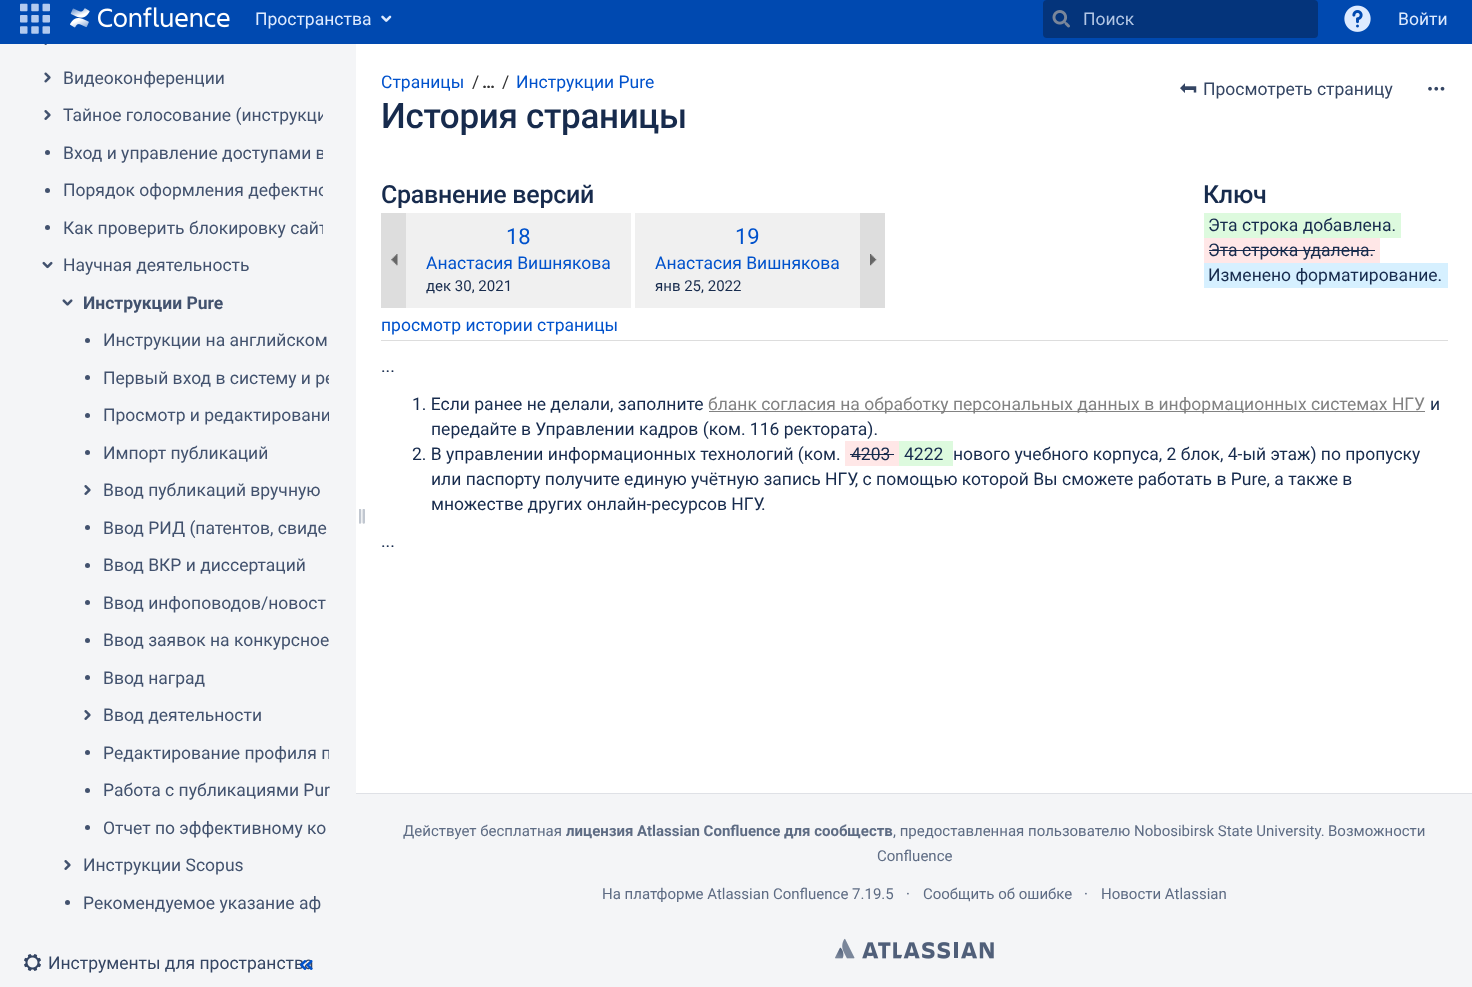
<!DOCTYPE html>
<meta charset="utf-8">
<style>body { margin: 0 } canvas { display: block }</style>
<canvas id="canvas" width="1472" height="987"></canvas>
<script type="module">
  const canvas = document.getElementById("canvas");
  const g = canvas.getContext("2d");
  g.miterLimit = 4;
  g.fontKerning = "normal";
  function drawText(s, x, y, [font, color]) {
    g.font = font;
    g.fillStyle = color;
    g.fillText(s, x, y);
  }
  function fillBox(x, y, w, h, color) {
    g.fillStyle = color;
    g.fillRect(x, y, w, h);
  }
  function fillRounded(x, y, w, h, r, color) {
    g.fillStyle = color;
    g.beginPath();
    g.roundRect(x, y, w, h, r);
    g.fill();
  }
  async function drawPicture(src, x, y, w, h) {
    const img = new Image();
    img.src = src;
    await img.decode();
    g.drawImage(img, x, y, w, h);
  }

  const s1 = ["17.5px Roboto", "#DEEBFF"];
  const s2 = ["17.5px Roboto", "#B2C6E5"];
  const s3 = ["17.5px Roboto", "#42526E"];
  const s4 = ["bold 17.5px Roboto", "#42526E"];
  const s5 = ["17.5px Roboto", "#344563"];
  const s6 = ["17.5px Roboto", "#0052CC"];
  const s7 = ["17.5px Roboto", "#333333"];
  const s8 = ["bold 17.5px Roboto", "#333333"];
  const s9 = ["500 35px Roboto", "#172B4D"];
  const s10 = ["500 25px Roboto", "#172B4D"];
  const s11 = ["17.5px Roboto", "#172B4D"];
  const s12 = ["22px Roboto", "#0052CC"];
  const s13 = ["15px Roboto", "#172B4D"];
  const s14 = ["17.5px Roboto", "#828282"];
  const s15 = ["15px Roboto", "#5E6C84"];
  const s16 = ["bold 15px Roboto", "#5E6C84"];

  fillBox(0, 0, 1472, 987, "#F4F5F7");
  fillBox(0, 0, 1472, 44, "#0049B0");
  await drawPicture("pic1.png", 20, 3, 30, 31);
  await drawPicture("pic2.png", 70, 7, 160, 21);
  drawText("Пространства", 255, 25, s1);
  await drawPicture("pic3.png", 381, 15, 11, 7);
  fillRounded(1043, 0, 275, 38, 4, "#04347B");
  await drawPicture("pic4.png", 1052, 10, 18, 18);
  drawText("Поиск", 1083, 25, s2);
  await drawPicture("pic5.png", 1344, 5, 27, 27);
  drawText("Войти", 1398, 25, s1);
  await drawPicture("pic6.png", 44, 44, 3, 1);
  await drawPicture("pic7.png", 44, 72, 7, 11);
  drawText("Видеоконференции", 63, 84, s3);
  await drawPicture("pic8.png", 44, 110, 7, 10);
  g.save();
  g.beginPath();
  g.rect(63, 103, 260, 25);
  g.clip();
  drawText("Тайное голосование (инструкци", 63, 121, s3);
  g.restore();
  g.beginPath();
  g.arc(47.5, 152.5, 2.5, 0, Math.PI * 2);
  g.fill();
  g.save();
  g.beginPath();
  g.rect(63, 140, 260, 25);
  g.clip();
  drawText("Вход и управление доступами в", 63, 159, s3);
  g.restore();
  g.beginPath();
  g.arc(47.5, 190.5, 2.5, 0, Math.PI * 2);
  g.fill();
  g.save();
  g.beginPath();
  g.rect(63, 178, 260, 25);
  g.clip();
  drawText("Порядок оформления дефектно", 63, 196, s3);
  g.restore();
  g.beginPath();
  g.arc(47.5, 227.5, 2.5, 0, Math.PI * 2);
  g.fill();
  g.save();
  g.beginPath();
  g.rect(63, 215, 260, 25);
  g.clip();
  drawText("Как проверить блокировку сайт", 63, 234, s3);
  g.restore();
  await drawPicture("pic9.png", 42, 261, 11, 8);
  drawText("Научная деятельность", 63, 271, s3);
  await drawPicture("pic10.png", 62, 299, 11, 7);
  drawText("Инструкции Pure", 83, 309, s4);
  g.beginPath();
  g.arc(87.5, 340.5, 2.5, 0, Math.PI * 2);
  g.fill();
  drawText("Инструкции на английском", 103, 346, s3);
  g.beginPath();
  g.arc(87.5, 377.5, 2.5, 0, Math.PI * 2);
  g.fill();
  g.save();
  g.beginPath();
  g.rect(103, 365, 226, 25);
  g.clip();
  drawText("Первый вход в систему и ре", 103, 384, s3);
  g.restore();
  g.beginPath();
  g.arc(87.5, 415.5, 2.5, 0, Math.PI * 2);
  g.fill();
  g.save();
  g.beginPath();
  g.rect(103, 403, 226, 25);
  g.clip();
  drawText("Просмотр и редактировани", 103, 421, s3);
  g.restore();
  g.beginPath();
  g.arc(87.5, 452.5, 2.5, 0, Math.PI * 2);
  g.fill();
  drawText("Импорт публикаций", 103, 459, s3);
  await drawPicture("pic8.png", 84, 485, 7, 10);
  drawText("Ввод публикаций вручную", 103, 496, s3);
  g.beginPath();
  g.arc(87.5, 527.5, 2.5, 0, Math.PI * 2);
  g.fill();
  drawText("Ввод РИД (патентов, свиде", 103, 534, s3);
  g.beginPath();
  g.arc(87.5, 565.5, 2.5, 0, Math.PI * 2);
  g.fill();
  drawText("Ввод ВКР и диссертаций", 103, 571, s3);
  g.beginPath();
  g.arc(87.5, 602.5, 2.5, 0, Math.PI * 2);
  g.fill();
  drawText("Ввод инфоповодов/новост", 103, 609, s3);
  g.beginPath();
  g.arc(87.5, 640.5, 2.5, 0, Math.PI * 2);
  g.fill();
  drawText("Ввод заявок на конкурсное", 103, 646, s3);
  g.beginPath();
  g.arc(87.5, 677.5, 2.5, 0, Math.PI * 2);
  g.fill();
  drawText("Ввод наград", 103, 684, s3);
  await drawPicture("pic8.png", 84, 710, 7, 10);
  drawText("Ввод деятельности", 103, 721, s3);
  g.beginPath();
  g.arc(87.5, 752.5, 2.5, 0, Math.PI * 2);
  g.fill();
  g.save();
  g.beginPath();
  g.rect(103, 740, 226, 25);
  g.clip();
  drawText("Редактирование профиля п", 103, 759, s3);
  g.restore();
  g.beginPath();
  g.arc(87.5, 790.5, 2.5, 0, Math.PI * 2);
  g.fill();
  drawText("Работа с публикациями Pur", 103, 796, s3);
  g.beginPath();
  g.arc(87.5, 827.5, 2.5, 0, Math.PI * 2);
  g.fill();
  drawText("Отчет по эффективному ко", 103, 834, s3);
  await drawPicture("pic8.png", 64, 860, 7, 10);
  drawText("Инструкции Scopus", 83, 871, s3);
  g.beginPath();
  g.arc(67.5, 902.5, 2.5, 0, Math.PI * 2);
  g.fill();
  drawText("Рекомендуемое указание аф", 83, 909, s3);
  fillBox(356, 44, 1116, 749, "#FFFFFF");
  await drawPicture("pic11.png", 359, 509, 6, 15);
  await drawPicture("pic12.png", 24, 954, 17, 17);
  drawText("Инструменты для пространства", 48, 969, s5);
  await drawPicture("pic13.png", 300, 960, 13, 10);
  fillBox(356, 793, 1116, 1, "#DFE1E6");
  drawText("Страницы", 381, 88, s6);
  drawText("/", 472, 88, s7);
  drawText("…", 482, 88, s8);
  drawText("/", 502, 88, s7);
  drawText("Инструкции Pure", 516, 88, s6);
  g.letterSpacing = "-0.3px";
  drawText("История страницы", 381, 128, s9);
  await drawPicture("pic14.png", 1180, 83, 17, 10);
  g.letterSpacing = "0px";
  drawText("Просмотреть страницу", 1203, 95, s5);
  await drawPicture("pic15.png", 1428, 86, 17, 5);
  fillBox(381, 340, 1067, 1, "#DDDDDD");
  g.letterSpacing = "-0.25px";
  drawText("Сравнение версий", 381, 203, s10);
  drawText("Ключ", 1203, 203, s10);
  fillBox(1204, 213, 197, 25, "#DDFADE");
  g.letterSpacing = "0px";
  drawText("Эта строка добавлена.", 1208, 231, s11);
  fillBox(1204, 238, 176, 25, "#FFE7E7");
  drawText("Эта строка удалена.", 1208, 256, s11);
  fillBox(1209, 250, 166, 1, "#172B4D");
  fillBox(1204, 263, 244, 25, "#D6F0FF");
  drawText("Изменено форматирование.", 1208, 281, s11);
  fillBox(406, 213, 225, 95, "#F0F0F0");
  drawText("18", 506, 244, s12);
  drawText("Анастасия Вишнякова", 426, 269, s6);
  drawText("дек 30, 2021", 426, 291, s13);
  fillBox(635, 213, 225, 95, "#F0F0F0");
  drawText("19", 735, 244, s12);
  drawText("Анастасия Вишнякова", 655, 269, s6);
  drawText("янв 25, 2022", 655, 291, s13);
  fillBox(381, 213, 25, 95, "#DDDDDD");
  await drawPicture("pic16.png", 391, 254, 7, 12);
  fillBox(860, 213, 25, 95, "#DDDDDD");
  await drawPicture("pic17.png", 870, 254, 7, 12);
  drawText("просмотр истории страницы", 381, 331, s6);
  drawText("...", 381, 372, s11);
  fillBox(709, 411, 716, 1, "#828282");
  drawText("бланк согласия на обработку персональных данных в информационных системах НГУ", 708, 410, s14);
  drawText("и", 1430, 410, s11);
  drawText("передайте в Управлении кадров (ком. 116 ректората).", 431, 435, s11);
  drawText("1. Если ранее не делали, заполните", 412, 410, s11);
  drawText("2. В управлении информационных технологий (ком.", 412, 460, s11);
  fillBox(845, 441, 54, 25, "#FFE7E7");
  drawText("4203", 851, 460, s11);
  fillBox(850, 454, 44, 1, "#172B4D");
  fillBox(899, 441, 54, 25, "#DDFADE");
  drawText("4222", 904, 460, s11);
  drawText("нового учебного корпуса, 2 блок, 4-ый этаж) по пропуску", 953, 460, s11);
  drawText("или паспорту получите единую учётную запись НГУ, с помощью которой Вы сможете работать в Pure, а также в", 431, 485, s11);
  drawText("множестве других онлайн-ресурсов НГУ.", 431, 510, s11);
  drawText("...", 381, 547, s11);
  drawText("Действует бесплатная", 403, 836, s15);
  drawText("лицензия Atlassian Confluence для сообществ", 566, 836, s16);
  drawText(", предоставленная пользователю Nobosibirsk State University.", 893, 836, s15);
  drawText("Возможности", 1328, 836, s15);
  drawText("Confluence", 877, 861, s15);
  drawText("На платформе Atlassian Confluence 7.19.5", 602, 899, s15);
  drawText("·", 906, 899, s15);
  drawText("Сообщить об ошибке", 923, 899, s15);
  drawText("·", 1084, 899, s15);
  drawText("Новости Atlassian", 1101, 899, s15);
  await drawPicture("pic18.png", 835, 938, 159, 21);
</script>
